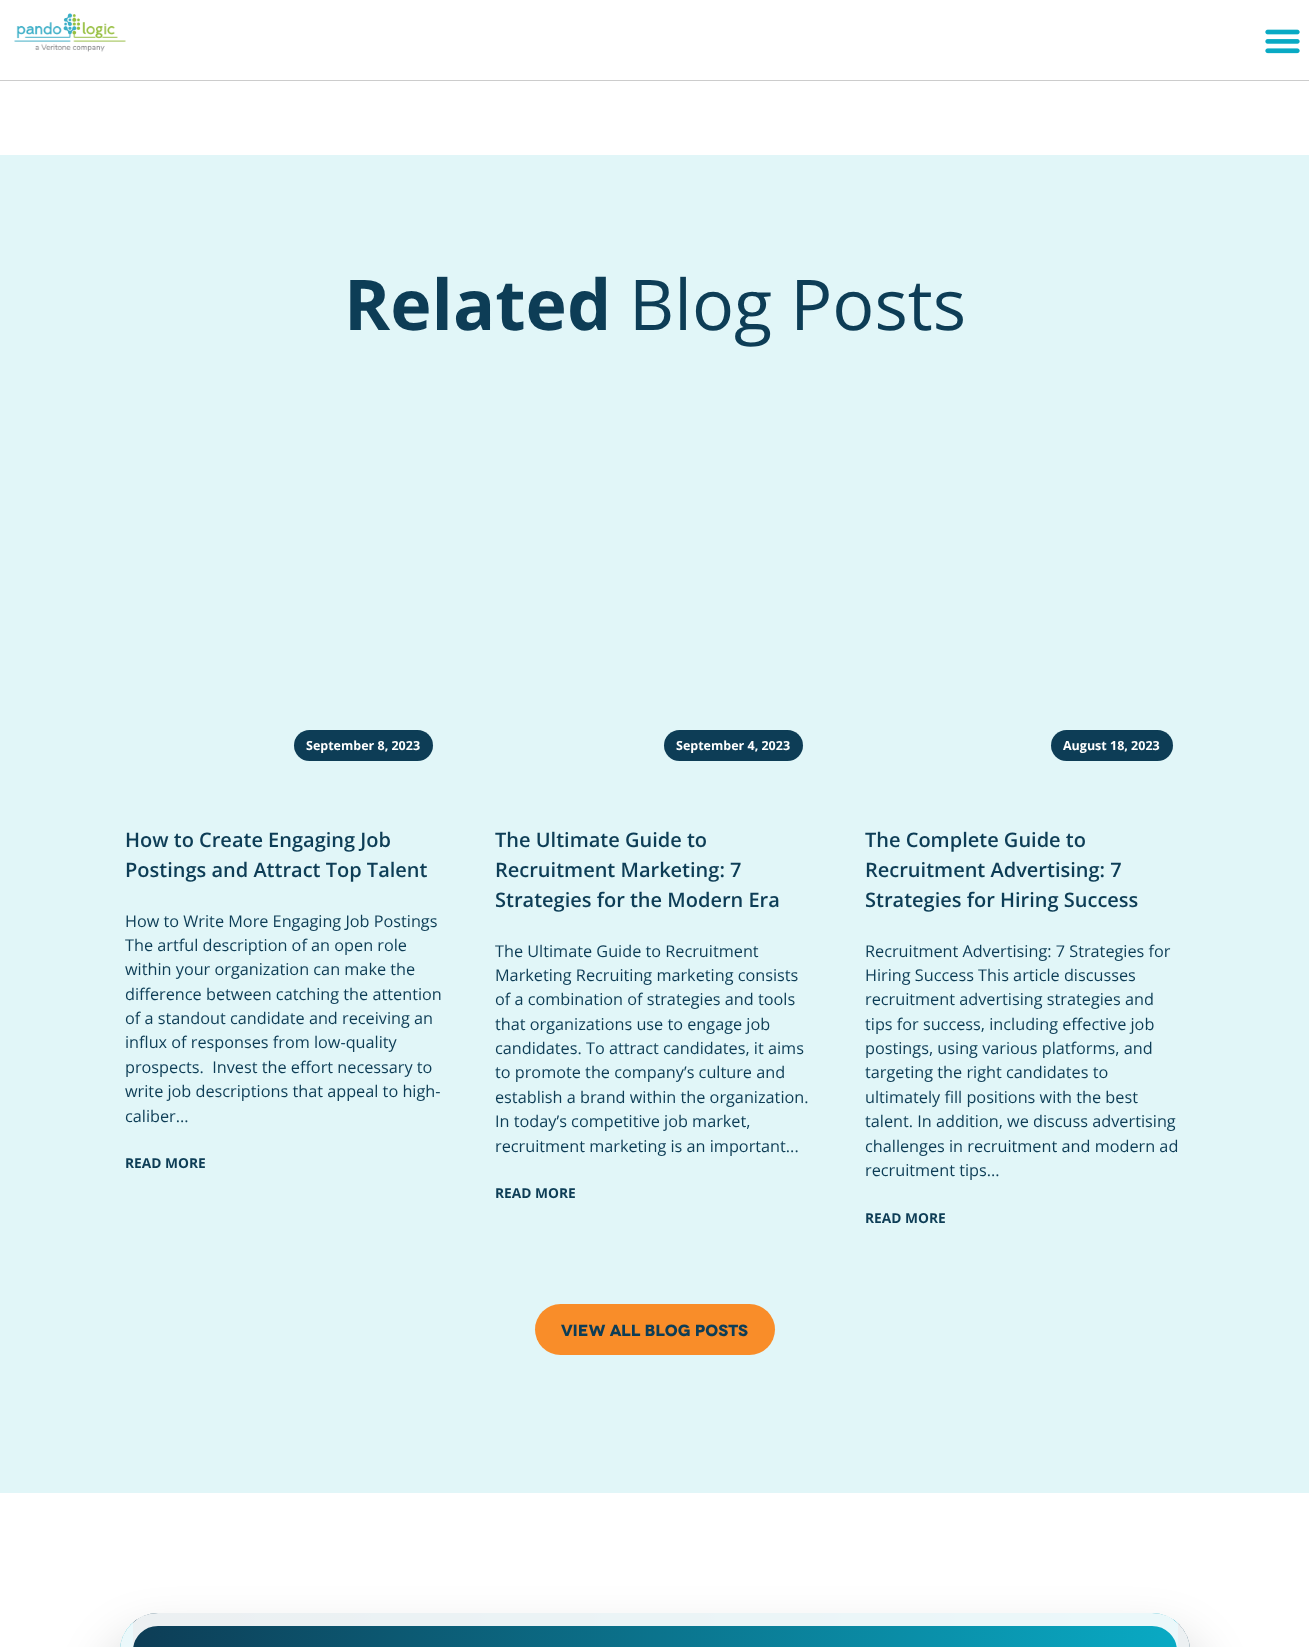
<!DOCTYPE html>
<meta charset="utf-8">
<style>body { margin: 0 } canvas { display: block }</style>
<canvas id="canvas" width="1309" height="1647"></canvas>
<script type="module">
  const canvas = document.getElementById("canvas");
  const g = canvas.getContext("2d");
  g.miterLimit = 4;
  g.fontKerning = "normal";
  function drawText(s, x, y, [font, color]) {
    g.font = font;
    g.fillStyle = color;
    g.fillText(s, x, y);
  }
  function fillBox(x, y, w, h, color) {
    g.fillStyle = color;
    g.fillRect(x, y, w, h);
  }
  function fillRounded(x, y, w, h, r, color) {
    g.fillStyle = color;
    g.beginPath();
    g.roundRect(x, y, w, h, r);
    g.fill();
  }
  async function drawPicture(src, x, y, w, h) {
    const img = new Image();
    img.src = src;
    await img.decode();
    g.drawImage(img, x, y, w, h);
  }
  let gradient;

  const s1 = ["bold 70px Open Sans", "#0D3D56"];
  const s2 = ["70px Open Sans", "#0D3D56"];
  const s3 = ["bold 12.5px Open Sans", "#FFFFFF"];
  const s4 = ["600 20px Open Sans", "#0D3D56"];
  const s5 = ["16.25px Open Sans", "#0D3D56"];
  const s6 = ["bold 13.75px Open Sans", "#0D3D56"];
  const s7 = ["bold 16.25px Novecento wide", "#0D3D56"];

  fillBox(0, 0, 1309, 1647, "#FFFFFF");
  fillBox(0, 80, 1309, 1, "#CCCCCC");
  await drawPicture("pic1.png", 14, 13, 112, 39);
  await drawPicture("pic2.png", 1265, 29, 35, 25);
  fillBox(0, 155, 1309, 1338, "#E1F6F8");
  drawText("Related", 344, 330, s1);
  drawText("Blog Posts", 629, 330, s2);
  fillRounded(294, 730, 139, 31, 15.5, "#0D3D56");
  drawText("September 8, 2023", 306, 750, s3);
  drawText("How to Create Engaging Job", 125, 847, s4);
  drawText("Postings and Attract Top Talent", 125, 877, s4);
  drawText("How to Write More Engaging Job Postings", 125, 927, s5);
  drawText("The artful description of an open role", 125, 951, s5);
  drawText("within your organization can make the", 125, 975, s5);
  drawText("difference between catching the attention", 125, 1000, s5);
  drawText("of a standout candidate and receiving an", 125, 1024, s5);
  drawText("influx of responses from low-quality", 125, 1048, s5);
  drawText("prospects.  Invest the effort necessary to", 125, 1073, s5);
  drawText("write job descriptions that appeal to high-", 125, 1097, s5);
  drawText("caliber...", 125, 1122, s5);
  drawText("READ MORE", 125, 1168, s6);
  fillRounded(664, 730, 139, 31, 15.5, "#0D3D56");
  drawText("September 4, 2023", 676, 750, s3);
  drawText("The Ultimate Guide to", 495, 847, s4);
  drawText("Recruitment Marketing: 7", 495, 877, s4);
  drawText("Strategies for the Modern Era", 495, 907, s4);
  drawText("The Ultimate Guide to Recruitment", 495, 957, s5);
  drawText("Marketing Recruiting marketing consists", 495, 981, s5);
  drawText("of a combination of strategies and tools", 495, 1005, s5);
  drawText("that organizations use to engage job", 495, 1030, s5);
  drawText("candidates. To attract candidates, it aims", 495, 1054, s5);
  drawText("to promote the company’s culture and", 495, 1078, s5);
  drawText("establish a brand within the organization.", 495, 1103, s5);
  drawText("In today’s competitive job market,", 495, 1127, s5);
  drawText("recruitment marketing is an important...", 495, 1152, s5);
  drawText("READ MORE", 495, 1198, s6);
  fillRounded(1051, 730, 122, 31, 15.5, "#0D3D56");
  drawText("August 18, 2023", 1063, 750, s3);
  drawText("The Complete Guide to", 865, 847, s4);
  drawText("Recruitment Advertising: 7", 865, 877, s4);
  drawText("Strategies for Hiring Success", 865, 907, s4);
  drawText("Recruitment Advertising: 7 Strategies for", 865, 957, s5);
  drawText("Hiring Success This article discusses", 865, 981, s5);
  drawText("recruitment advertising strategies and", 865, 1005, s5);
  drawText("tips for success, including effective job", 865, 1030, s5);
  drawText("postings, using various platforms, and", 865, 1054, s5);
  drawText("targeting the right candidates to", 865, 1078, s5);
  drawText("ultimately fill positions with the best", 865, 1103, s5);
  drawText("talent. In addition, we discuss advertising", 865, 1127, s5);
  drawText("challenges in recruitment and modern ad", 865, 1152, s5);
  drawText("recruitment tips...", 865, 1176, s5);
  drawText("READ MORE", 865, 1223, s6);
  fillRounded(535, 1304, 240, 51, 25.5, "#F98D29");
  drawText("VIEW ALL BLOG POSTS", 561, 1336, s7);
  g.fillStyle = "rgba(0, 0, 0, 0.12)";
  g.filter = "blur(23px)";
  g.beginPath();
  g.roundRect(101, 1631, 1108, 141, 56);
  g.fill();
  g.filter = "none";
  g.save();
  g.beginPath();
  g.roundRect(120, 1613, 1070, 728, 38);
  g.clip();
  gradient = g.createLinearGradient(-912, 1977, 133, 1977);
  gradient.addColorStop(0, "#0D3D56");
  gradient.addColorStop(1, "#09AAC4");
  g.fillStyle = gradient;
  g.fillRect(120, 1622, 13, 25);
  gradient = g.createLinearGradient(133, 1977, 1178, 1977);
  gradient.addColorStop(0, "#0D3D56");
  gradient.addColorStop(1, "#09AAC4");
  g.fillStyle = gradient;
  g.fillRect(133, 1613, 1045, 34);
  gradient = g.createLinearGradient(1178, 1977, 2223, 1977);
  gradient.addColorStop(0, "#0D3D56");
  gradient.addColorStop(1, "#09AAC4");
  g.fillStyle = gradient;
  g.fillRect(1178, 1623, 12, 24);
  g.restore();
  g.beginPath();
  g.roundRect(126.5, 1619.5, 1057, 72, 31.5);
  g.strokeStyle = "rgba(255, 255, 255, 0.92)";
  g.lineWidth = 13;
  g.stroke();
</script>
